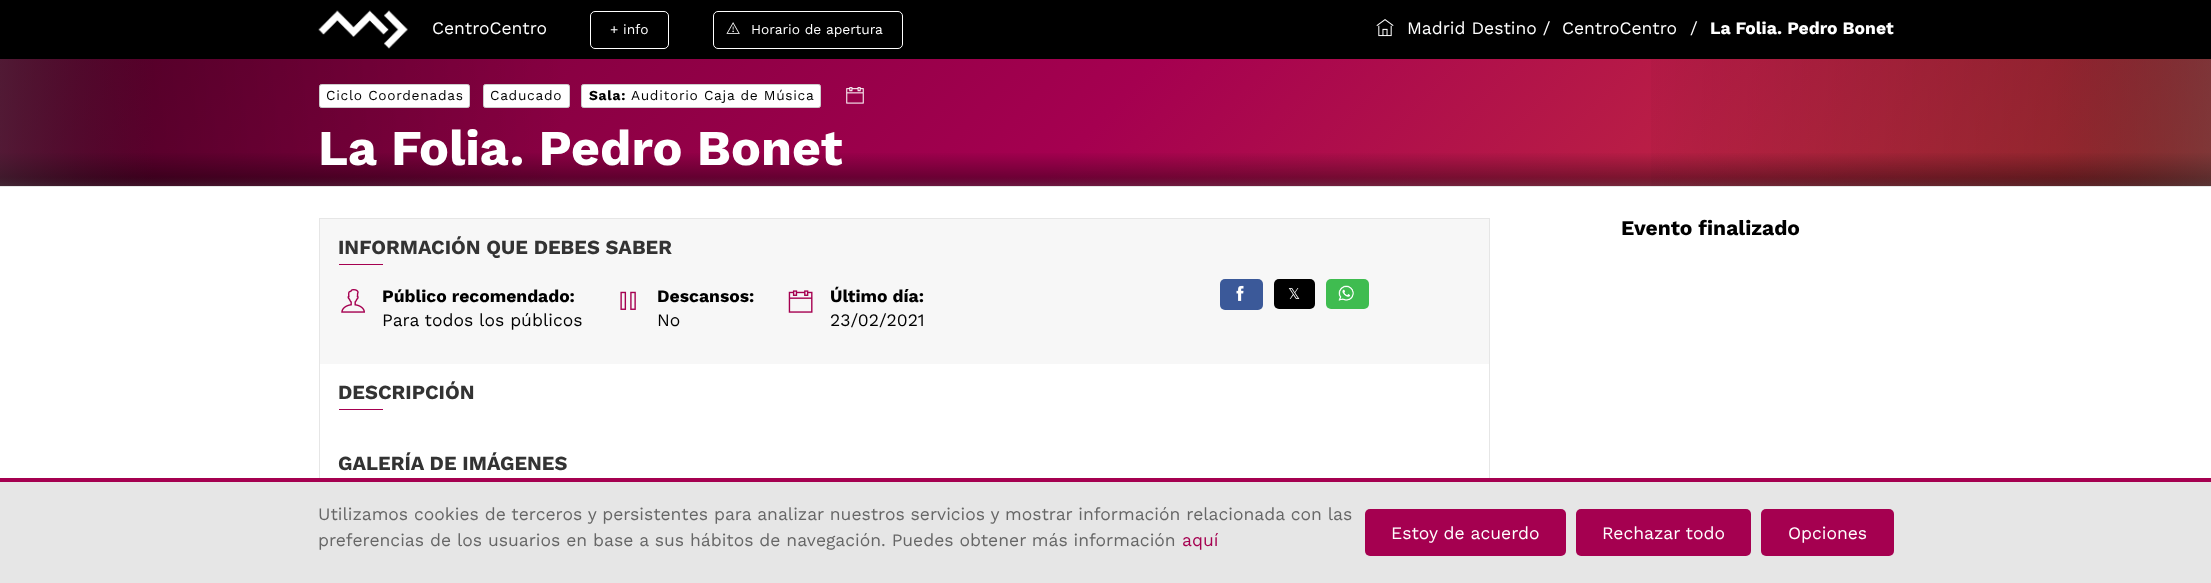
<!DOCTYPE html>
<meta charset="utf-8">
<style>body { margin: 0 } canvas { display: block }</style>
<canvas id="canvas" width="2211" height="583"></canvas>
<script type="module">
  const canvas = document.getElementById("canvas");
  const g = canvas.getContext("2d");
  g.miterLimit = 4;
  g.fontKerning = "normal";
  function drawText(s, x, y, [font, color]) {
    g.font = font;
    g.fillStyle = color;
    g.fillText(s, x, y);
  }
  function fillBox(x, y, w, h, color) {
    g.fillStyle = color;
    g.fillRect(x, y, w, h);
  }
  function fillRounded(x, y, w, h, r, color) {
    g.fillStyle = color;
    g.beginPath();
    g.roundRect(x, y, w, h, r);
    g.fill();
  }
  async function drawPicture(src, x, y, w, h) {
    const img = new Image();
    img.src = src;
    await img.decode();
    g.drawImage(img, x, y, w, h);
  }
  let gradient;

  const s1 = ["17.5px Work Sans", "#FFFFFF"];
  const s2 = ["13.75px Work Sans", "#FFFFFF"];
  const s3 = ["bold 17.5px Work Sans", "#FFFFFF"];
  const s4 = ["13.75px Work Sans", "#000000"];
  const s5 = ["bold 13.75px Work Sans", "#000000"];
  const s6 = ["bold 50px Work Sans", "#FFFFFF"];
  const s7 = ["bold 21px Work Sans", "#000000"];
  const s8 = ["bold 20px Work Sans", "#333333"];
  const s9 = ["bold 17.5px Work Sans", "#000000"];
  const s10 = ["17.5px Work Sans", "#000000"];
  const s11 = ["15px DejaVu Sans", "#FFFFFF"];
  const s12 = ["17.5px Work Sans", "#666666"];
  const s13 = ["17.5px Work Sans", "#A50050"];

  fillBox(0, 0, 2211, 583, "#FFFFFF");
  fillBox(0, 0, 2211, 59, "#000000");
  await drawPicture("pic1.png", 318, 10, 90, 39);
  drawText("CentroCentro", 432, 34, s1);
  g.beginPath();
  g.roundRect(590.5, 11.5, 78, 37, 4.5);
  g.strokeStyle = "#FFFFFF";
  g.stroke();
  drawText("+ info", 610, 34, s2);
  g.beginPath();
  g.roundRect(713.5, 11.5, 189, 37, 4.5);
  g.stroke();
  await drawPicture("pic2.png", 726, 22, 14, 12);
  drawText("Horario de apertura", 751, 34, s2);
  await drawPicture("pic3.png", 1376, 19, 18, 18);
  drawText("Madrid Destino /", 1407, 34, s1);
  drawText("CentroCentro", 1562, 34, s1);
  drawText("/", 1690, 34, s1);
  drawText("La Folia. Pedro Bonet", 1710, 34, s3);
  gradient = g.createLinearGradient(-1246, -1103, 1496, 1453);
  gradient.addColorStop(0, "#000000");
  gradient.addColorStop(0.68, "#A50050");
  gradient.addColorStop(1, "#DE5433");
  g.fillStyle = gradient;
  g.fillRect(0, 59, 2211, 127);
  fillBox(0, 186, 2211, 1, "#E6E6E6");
  gradient = g.createLinearGradient(1106, 59, 1106, 186);
  gradient.addColorStop(0, "rgba(0, 0, 0, 0)");
  gradient.addColorStop(0.73, "rgba(0, 0, 0, 0)");
  gradient.addColorStop(0.93, "rgba(0, 0, 0, 0.33)");
  gradient.addColorStop(1, "rgba(51, 51, 51, 0.5)");
  g.fillStyle = gradient;
  g.fillRect(0, 153, 2211, 33);
  gradient = g.createLinearGradient(2211, 122, 0, 123);
  gradient.addColorStop(0, "rgba(0, 0, 0, 0)");
  gradient.addColorStop(0.73, "rgba(0, 0, 0, 0)");
  gradient.addColorStop(0.93, "rgba(0, 0, 0, 0.26)");
  gradient.addColorStop(1, "rgba(51, 51, 51, 0.5)");
  g.fillStyle = gradient;
  g.fillRect(0, 59, 560, 127);
  gradient = g.createLinearGradient(0, 123, 2211, 122);
  gradient.addColorStop(0, "rgba(0, 0, 0, 0)");
  gradient.addColorStop(0.73, "rgba(0, 0, 0, 0)");
  gradient.addColorStop(0.93, "rgba(0, 0, 0, 0.26)");
  gradient.addColorStop(1, "rgba(51, 51, 51, 0.5)");
  g.fillStyle = gradient;
  g.fillRect(1651, 59, 560, 127);
  g.fillStyle = "#FFFFFF";
  g.beginPath();
  g.roundRect(319.5, 84.5, 150, 23, 2);
  g.fill();
  g.strokeStyle = "#CCCCCC";
  g.stroke();
  g.letterSpacing = "0.7px";
  drawText("Ciclo Coordenadas", 326, 100, s4);
  g.fillStyle = "#FFFFFF";
  g.beginPath();
  g.roundRect(483.5, 84.5, 86, 23, 2);
  g.fill();
  g.stroke();
  drawText("Caducado", 490, 100, s4);
  g.fillStyle = "#FFFFFF";
  g.beginPath();
  g.roundRect(581.5, 84.5, 239, 23, 2);
  g.fill();
  g.stroke();
  drawText("Sala:", 589, 100, s5);
  drawText("Auditorio Caja de Música", 631, 100, s4);
  await drawPicture("pic4.png", 846, 87, 18, 17);
  g.letterSpacing = "0px";
  drawText("La Folia. Pedro Bonet", 318, 165, s6);
  drawText("Evento finalizado", 1621, 235, s7);
  g.strokeStyle = "#E6E6E6";
  g.strokeRect(319.5, 218.5, 1170, 319);
  fillBox(320, 219, 1169, 145, "#F7F7F7");
  drawText("INFORMACIÓN QUE DEBES SABER", 338, 254, s8);
  fillBox(339, 264, 44, 1, "#A50050");
  await drawPicture("pic5.png", 341, 289, 24, 24);
  drawText("Público recomendado:", 382, 302, s9);
  drawText("Para todos los públicos", 382, 326, s10);
  await drawPicture("pic6.png", 620, 291, 16, 19);
  drawText("Descansos:", 657, 302, s9);
  drawText("No", 657, 326, s10);
  await drawPicture("pic7.png", 788, 290, 25, 23);
  drawText("Último día:", 830, 302, s9);
  drawText("23/02/2021", 830, 326, s10);
  fillRounded(1220, 279, 43, 31, 5, "#3B5999");
  await drawPicture("pic8.png", 1236, 285, 8, 16);
  fillRounded(1274, 279, 41, 30, 5, "#000000");
  drawText("𝕏", 1288, 299, s11);
  fillRounded(1326, 279, 43, 30, 5, "#3FBC50");
  await drawPicture("pic9.png", 1338, 285, 16, 16);
  drawText("DESCRIPCIÓN", 338, 399, s8);
  fillBox(339, 409, 44, 1, "#A50050");
  drawText("GALERÍA DE IMÁGENES", 338, 470, s8);
  fillBox(0, 482, 2211, 101, "#E6E6E6");
  fillBox(0, 478, 2211, 4, "#A50050");
  drawText("Utilizamos cookies de terceros y persistentes para analizar nuestros servicios y mostrar información relacionada con las", 318, 520, s12);
  drawText("preferencias de los usuarios en base a sus hábitos de navegación. Puedes obtener más información", 318, 546, s12);
  drawText("aquí", 1182, 546, s13);
  fillRounded(1365, 509, 201, 47, 5, "#A50050");
  drawText("Estoy de acuerdo", 1391, 539, s1);
  fillRounded(1576, 509, 175, 47, 5, "#A50050");
  drawText("Rechazar todo", 1602, 539, s1);
  fillRounded(1761, 509, 133, 47, 5, "#A50050");
  drawText("Opciones", 1788, 539, s1);
</script>
